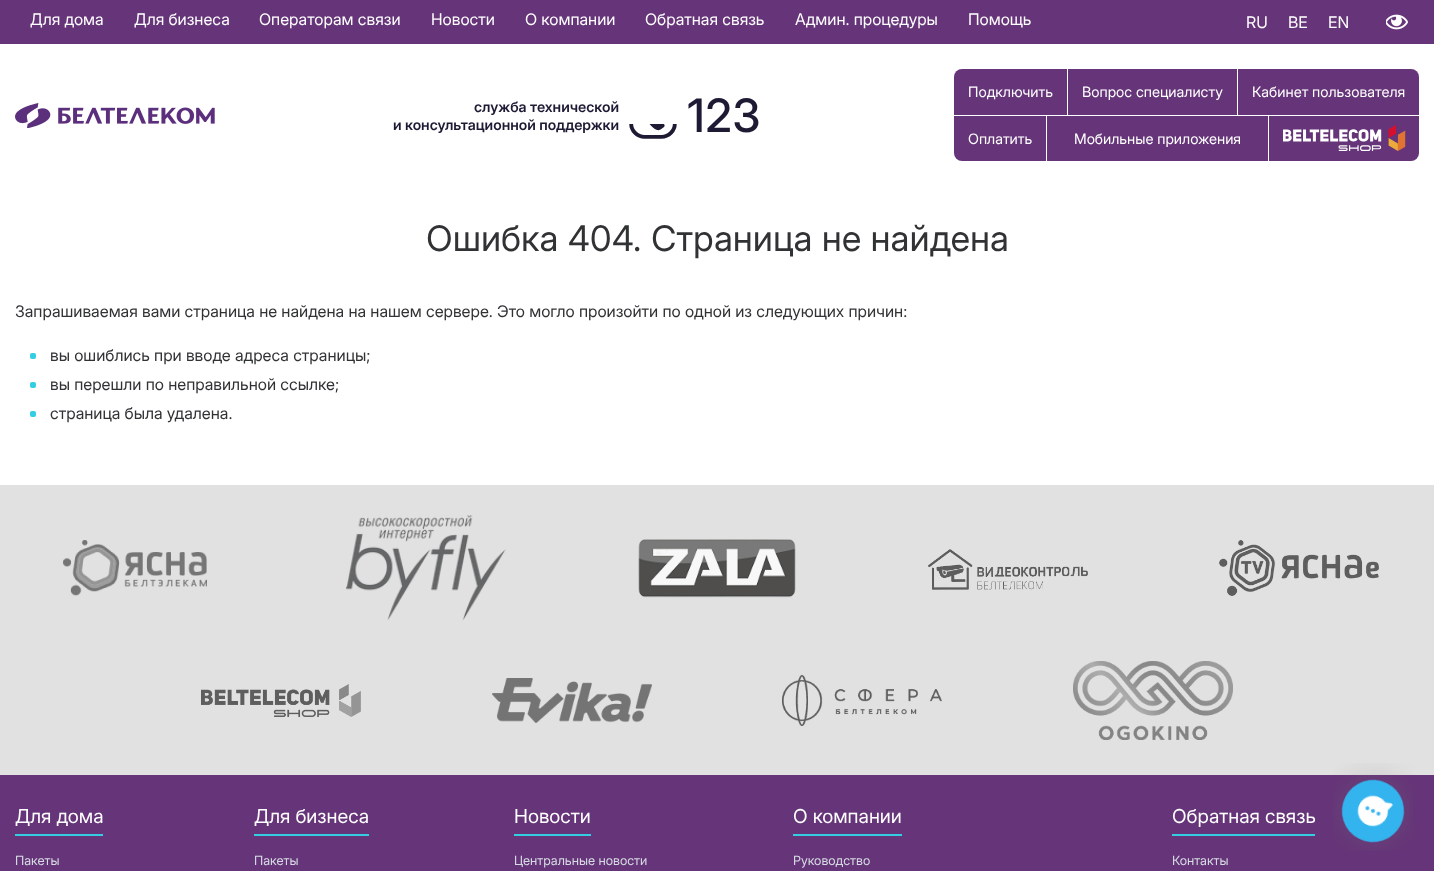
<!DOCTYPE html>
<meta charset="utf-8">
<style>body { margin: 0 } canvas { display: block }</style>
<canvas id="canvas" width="1434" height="871"></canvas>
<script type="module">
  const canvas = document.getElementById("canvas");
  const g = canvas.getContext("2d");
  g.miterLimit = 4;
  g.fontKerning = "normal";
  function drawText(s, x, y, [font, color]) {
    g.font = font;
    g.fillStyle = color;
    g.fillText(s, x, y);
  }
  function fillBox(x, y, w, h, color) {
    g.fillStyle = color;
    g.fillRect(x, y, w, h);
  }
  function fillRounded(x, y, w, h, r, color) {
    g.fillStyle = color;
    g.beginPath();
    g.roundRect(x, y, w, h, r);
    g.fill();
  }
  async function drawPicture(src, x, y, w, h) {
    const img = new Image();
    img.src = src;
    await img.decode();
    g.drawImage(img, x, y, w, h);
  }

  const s1 = ["16px Inter", "#FFFFFF"];
  const s2 = ["600 14.4px Inter", "#1E1A34"];
  const s3 = ["500 46px Inter", "#1E1A34"];
  const s4 = ["14.4px Inter", "#FFFFFF"];
  const s5 = ["35.25px Inter", "#313234"];
  const s6 = ["16px Inter", "#313234"];
  const s7 = ["19.25px Inter", "#FFFFFF"];
  const s8 = ["12.75px Inter", "#D6DCE3"];

  fillBox(0, 0, 1434, 871, "#FFFFFF");
  fillBox(0, 0, 1434, 44, "#663479");
  drawText("Для дома", 30, 25, s1);
  drawText("Для бизнеса", 134, 25, s1);
  drawText("Операторам связи", 259, 25, s1);
  drawText("Новости", 431, 25, s1);
  drawText("О компании", 525, 25, s1);
  drawText("Обратная связь", 645, 25, s1);
  drawText("Админ. процедуры", 795, 25, s1);
  drawText("Помощь", 968, 25, s1);
  drawText("RU", 1246, 28, s1);
  drawText("BE", 1288, 28, s1);
  drawText("EN", 1328, 28, s1);
  await drawPicture("pic1.png", 1386, 14, 22, 16);
  await drawPicture("pic2.png", 15, 103, 200, 25);
  drawText("служба технической", 474, 112, s2);
  drawText("и консультационной поддержки", 393, 130, s2);
  await drawPicture("pic3.png", 629, 124, 48, 15);
  drawText("123", 687, 132, s3);
  g.fillStyle = "#663479";
  g.beginPath();
  g.roundRect(954, 69, 113, 46, [8, 0, 0, 0]);
  g.fill();
  drawText("Подключить", 968, 97, s4);
  fillBox(1068, 69, 169, 46, "#663479");
  drawText("Вопрос специалисту", 1082, 97, s4);
  g.fillStyle = "#663479";
  g.beginPath();
  g.roundRect(1238, 69, 181, 46, [0, 8, 0, 0]);
  g.fill();
  drawText("Кабинет пользователя", 1252, 97, s4);
  g.fillStyle = "#663479";
  g.beginPath();
  g.roundRect(954, 116, 92, 45, [0, 0, 0, 8]);
  g.fill();
  drawText("Оплатить", 968, 144, s4);
  fillBox(1047, 116, 221, 45, "#663479");
  drawText("Мобильные приложения", 1074, 144, s4);
  g.fillStyle = "#663479";
  g.beginPath();
  g.roundRect(1269, 116, 150, 45, [0, 0, 8, 0]);
  g.fill();
  await drawPicture("pic4.png", 1283, 125, 123, 26);
  drawText("Ошибка 404. Страница не найдена", 426, 251, s5);
  drawText("Запрашиваемая вами страница не найдена на нашем сервере. Это могло произойти по одной из следующих причин:", 15, 317, s6);
  fillRounded(30, 353, 6, 6, 2, "#33CEE1");
  drawText("вы ошиблись при вводе адреса страницы;", 50, 361, s6);
  fillRounded(30, 382, 6, 6, 2, "#33CEE1");
  drawText("вы перешли по неправильной ссылке;", 50, 390, s6);
  fillRounded(30, 411, 6, 6, 2, "#33CEE1");
  drawText("страница была удалена.", 50, 419, s6);
  fillBox(0, 485, 1434, 290, "#E1E1E1");
  await drawPicture("pic5.png", 63, 540, 144, 56);
  await drawPicture("pic6.png", 346, 515, 160, 106);
  await drawPicture("pic7.png", 638, 539, 158, 59);
  await drawPicture("pic8.png", 928, 549, 160, 41);
  await drawPicture("pic9.png", 1219, 540, 160, 56);
  await drawPicture("pic10.png", 201, 684, 160, 33);
  await drawPicture("pic11.png", 492, 678, 160, 45);
  await drawPicture("pic12.png", 782, 675, 160, 51);
  await drawPicture("pic13.png", 1073, 661, 160, 79);
  fillBox(0, 775, 1434, 96, "#663479");
  drawText("Для дома", 15, 823, s7);
  fillBox(15, 834, 88, 2, "#33CEE1");
  drawText("Пакеты", 15, 865, s8);
  drawText("Для бизнеса", 254, 823, s7);
  fillBox(254, 834, 115, 2, "#33CEE1");
  drawText("Пакеты", 254, 865, s8);
  drawText("Новости", 514, 823, s7);
  fillBox(514, 834, 77, 2, "#33CEE1");
  drawText("Центральные новости", 514, 865, s8);
  drawText("О компании", 793, 823, s7);
  fillBox(793, 834, 109, 2, "#33CEE1");
  drawText("Руководство", 793, 865, s8);
  drawText("Обратная связь", 1172, 823, s7);
  fillBox(1172, 834, 143, 2, "#33CEE1");
  drawText("Контакты", 1172, 865, s8);
  await drawPicture("pic14.png", 1333, 763, 80, 88);
</script>
